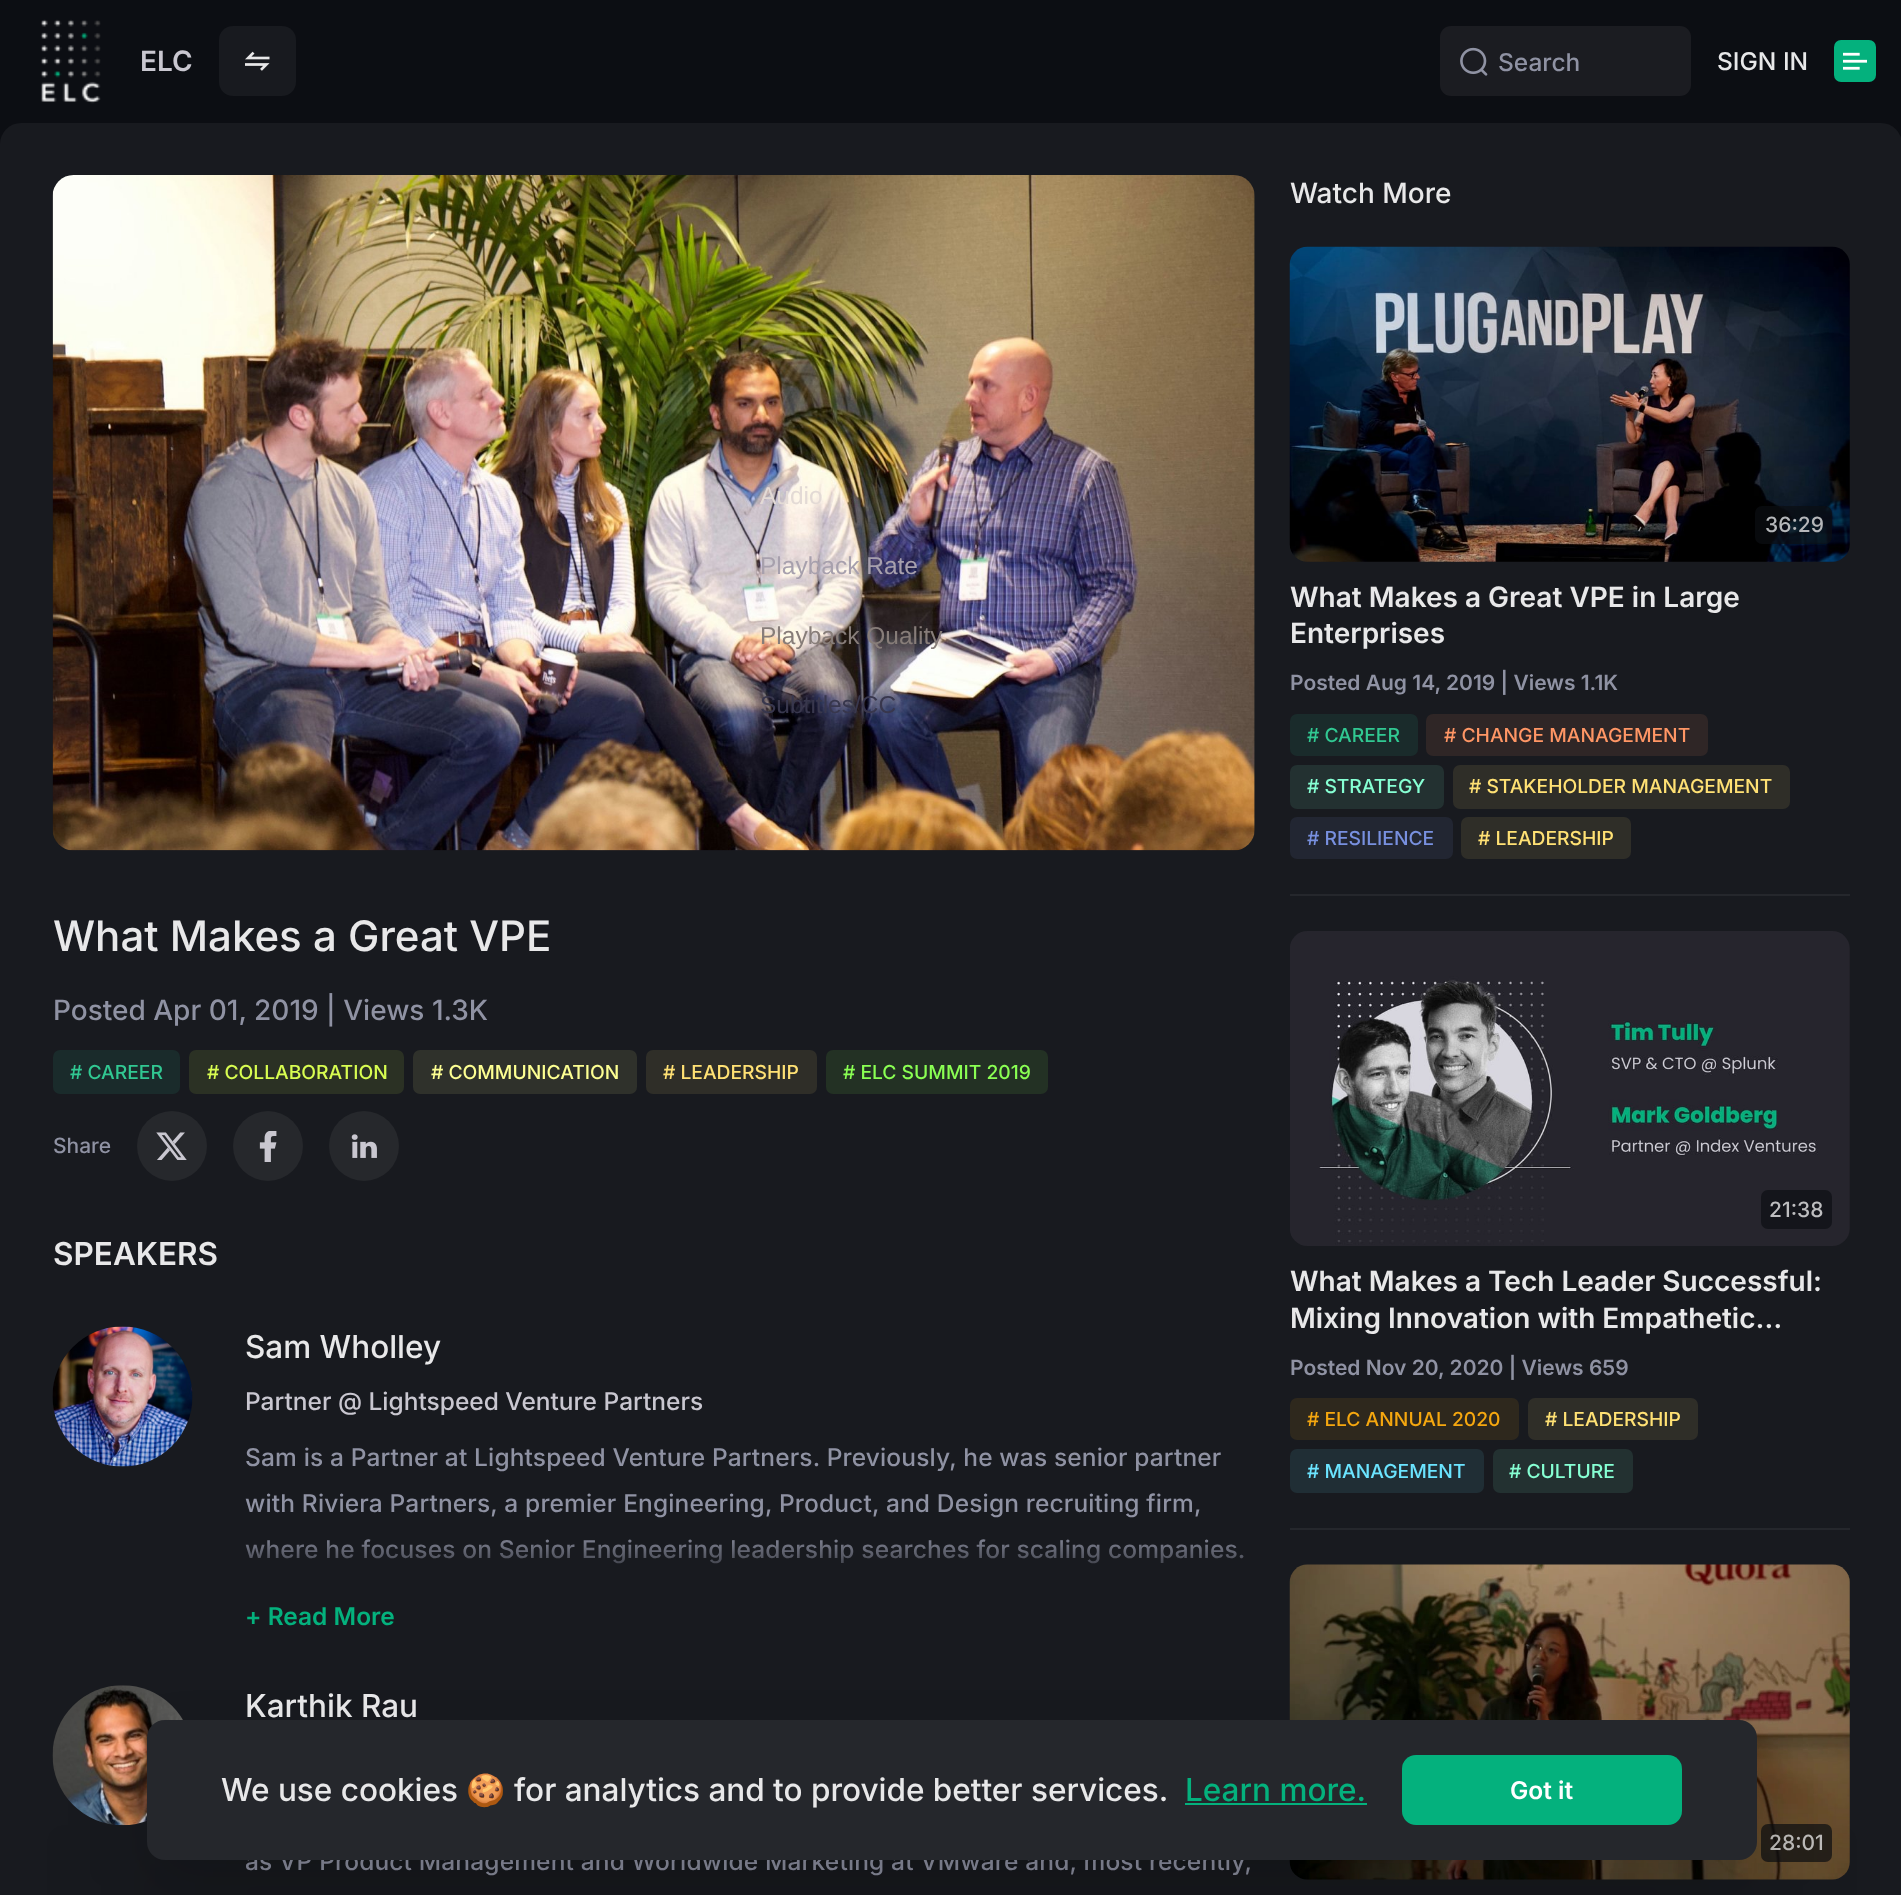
<!DOCTYPE html>
<meta charset="utf-8">
<style>body { margin: 0 } canvas { display: block }</style>
<canvas id="canvas" width="1901" height="1895"></canvas>
<script type="module">
  const canvas = document.getElementById("canvas");
  const g = canvas.getContext("2d");
  g.miterLimit = 4;
  g.fontKerning = "normal";
  function drawText(s, x, y, [font, color]) {
    g.font = font;
    g.fillStyle = color;
    g.fillText(s, x, y);
  }
  function fillBox(x, y, w, h, color) {
    g.fillStyle = color;
    g.fillRect(x, y, w, h);
  }
  function fillRounded(x, y, w, h, r, color) {
    g.fillStyle = color;
    g.beginPath();
    g.roundRect(x, y, w, h, r);
    g.fill();
  }
  async function drawPicture(src, x, y, w, h) {
    const img = new Image();
    img.src = src;
    await img.decode();
    g.drawImage(img, x, y, w, h);
  }
  let gradient;

  const s1 = ["600 28px Inter", "#C9C7D0"];
  const s2 = ["500 24.5px Inter", "#8F92A3"];
  const s3 = ["500 24.5px Inter", "#E8E8E9"];
  const s4 = ["24.5px Liberation Sans", "#E3DAD5"];
  const s5 = ["24.5px Liberation Sans", "#A7A0AD"];
  const s6 = ["24.5px Liberation Sans", "#877D79"];
  const s7 = ["24.5px Liberation Sans", "#38374D"];
  const s8 = ["500 42px Inter", "#E8E8E9"];
  const s9 = ["500 28px Inter", "#8F92A3"];
  const s10 = ["500 19.25px Inter", "#31C892"];
  const s11 = ["500 19.25px Inter", "#D8FD51"];
  const s12 = ["500 19.25px Inter", "#FDFF92"];
  const s13 = ["500 19.25px Inter", "#FFE174"];
  const s14 = ["500 19.25px Inter", "#8AFF53"];
  const s15 = ["500 21px Inter", "#8F92A3"];
  const s16 = ["600 31.5px Inter", "#E8E8E9"];
  const s17 = ["500 31.5px Inter", "#E8E8E9"];
  const s18 = ["500 24.5px Inter", "#C9C7D0"];
  const s19 = ["600 24.5px Inter", "#04B17D"];
  const s20 = ["500 28px Inter", "#E8E8E9"];
  const s21 = ["500 21px Inter", "#B5B7BA"];
  const s22 = ["600 28px Inter", "#E8E8E9"];
  const s23 = ["600 21px Inter", "#8F92A3"];
  const s24 = ["500 19.25px Inter", "#FF9665"];
  const s25 = ["500 19.25px Inter", "#86FFD3"];
  const s26 = ["500 19.25px Inter", "#7890DF"];
  const s27 = ["500 21px Inter", "#BEBEC0"];
  const s28 = ["500 19.25px Inter", "#F5A70F"];
  const s29 = ["500 19.25px Inter", "#6BE4FF"];
  const s30 = ["500 21px Inter", "#BEBCBA"];
  const s31 = ["31.5px Noto Color Emoji", "#E8E8E9"];
  const s32 = ["500 31.5px Inter", "#04B17D"];
  const s33 = ["600 24.5px Inter", "#FFFFFF"];

  fillBox(0, 0, 1901, 1895, "#0C0E13");
  await drawPicture("pic1.png", 40, 19, 61, 85);
  drawText("ELC", 140, 71, s1);
  fillRounded(219, 26, 77, 70, 14, "#181A1F");
  await drawPicture("pic2.png", 245, 51, 25, 20);
  fillRounded(1440, 26, 251, 70, 11, "#1B1C21");
  await drawPicture("pic3.png", 1460, 47, 28, 29);
  drawText("Search", 1498, 71, s2);
  drawText("SIGN IN", 1717, 70, s3);
  fillRounded(1834, 40, 42, 42, 7, "#04B17D");
  await drawPicture("pic4.png", 1843, 52, 24, 18);
  fillRounded(0, 123, 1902, 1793, 21, "#181A1F");
  await drawPicture("pic5.png", 52, 175, 1203, 676);
  drawText("Audio", 760, 504, s4);
  drawText("Playback Rate", 760, 574, s5);
  drawText("Playback Quality", 760, 644, s6);
  drawText("Subtitles/CC", 760, 713, s7);
  drawText("What Makes a Great VPE", 53, 951, s8);
  drawText("Posted Apr 01, 2019 | Views 1.3K", 53, 1020, s9);
  fillRounded(53, 1050, 127, 44, 7, "#1A2B2B");
  drawText("# CAREER", 70, 1079, s10);
  fillRounded(189, 1050, 215, 44, 7, "#2B3124");
  drawText("# COLLABORATION", 207, 1079, s11);
  fillRounded(413, 1050, 224, 44, 7, "#2F312B");
  drawText("# COMMUNICATION", 431, 1079, s12);
  fillRounded(646, 1050, 171, 44, 7, "#2F2E28");
  drawText("# LEADERSHIP", 663, 1079, s13);
  fillRounded(826, 1050, 222, 44, 7, "#233124");
  drawText("# ELC SUMMIT 2019", 843, 1079, s14);
  drawText("Share", 53, 1153, s15);
  g.fillStyle = "#26282C";
  g.beginPath();
  g.arc(172, 1146, 35, 0, Math.PI * 2);
  g.fill();
  await drawPicture("pic6.png", 156, 1132, 31, 28);
  g.beginPath();
  g.arc(268, 1146, 35, 0, Math.PI * 2);
  g.fill();
  await drawPicture("pic7.png", 259, 1131, 18, 31);
  g.beginPath();
  g.arc(364, 1146, 35, 0, Math.PI * 2);
  g.fill();
  await drawPicture("pic8.png", 351, 1134, 26, 24);
  drawText("SPEAKERS", 53, 1265, s16);
  await drawPicture("pic9.png", 52, 1326, 141, 141);
  drawText("Sam Wholley", 245, 1358, s17);
  drawText("Partner @ Lightspeed Venture Partners", 245, 1410, s18);
  g.letterSpacing = "0.15px";
  drawText("Sam is a Partner at Lightspeed Venture Partners. Previously, he was senior partner", 245, 1466, s2);
  drawText("with Riviera Partners, a premier Engineering, Product, and Design recruiting firm,", 245, 1512, s2);
  drawText("where he focuses on Senior Engineering leadership searches for scaling companies.", 245, 1558, s2);
  gradient = g.createLinearGradient(750, 1531, 750, 1584);
  gradient.addColorStop(0, "rgba(24, 26, 31, 0)");
  gradient.addColorStop(1, "#181A1F");
  g.fillStyle = gradient;
  g.fillRect(245, 1539, 998, 25);
  g.letterSpacing = "0px";
  drawText("+ Read More", 245, 1625, s19);
  await drawPicture("pic10.png", 52, 1685, 131, 141);
  drawText("Karthik Rau", 245, 1717, s17);
  g.letterSpacing = "0.15px";
  drawText("as VP Product Management and Worldwide Marketing at VMware and, most recently,", 245, 1870, s2);
  g.letterSpacing = "0px";
  drawText("Watch More", 1290, 203, s20);
  await drawPicture("pic11.png", 1289, 246, 561, 316);
  fillRounded(1755, 506, 77, 38, 7, "rgba(12, 14, 19, 0.7)");
  drawText("36:29", 1765, 532, s21);
  drawText("What Makes a Great VPE in Large", 1290, 607, s22);
  drawText("Enterprises", 1290, 643, s22);
  drawText("Posted Aug 14, 2019 | Views 1.1K", 1290, 690, s23);
  fillRounded(1290, 714, 128, 42, 7, "#1A2B2B");
  drawText("# CAREER", 1307, 742, s10);
  fillRounded(1426, 714, 282, 42, 7, "#2F2626");
  drawText("# CHANGE MANAGEMENT", 1444, 742, s24);
  fillRounded(1290, 765, 154, 44, 7, "#233131");
  drawText("# STRATEGY", 1307, 793, s25);
  fillRounded(1453, 765, 337, 44, 7, "#2F2E28");
  drawText("# STAKEHOLDER MANAGEMENT", 1469, 793, s13);
  fillRounded(1290, 817, 163, 42, 7, "#222632");
  drawText("# RESILIENCE", 1307, 845, s26);
  fillRounded(1461, 817, 170, 42, 7, "#2F2E28");
  drawText("# LEADERSHIP", 1478, 845, s13);
  fillBox(1290, 894, 560, 2, "#25272C");
  await drawPicture("pic12.png", 1290, 931, 560, 315);
  fillRounded(1761, 1190, 71, 39, 7, "#14151B");
  drawText("21:38", 1769, 1217, s27);
  drawText("What Makes a Tech Leader Successful:", 1290, 1291, s22);
  drawText("Mixing Innovation with Empathetic…", 1290, 1328, s22);
  drawText("Posted Nov 20, 2020 | Views 659", 1290, 1375, s23);
  fillRounded(1290, 1398, 229, 42, 7, "#2E281D");
  drawText("# ELC ANNUAL 2020", 1307, 1426, s28);
  fillRounded(1528, 1398, 170, 42, 7, "#2F2E28");
  drawText("# LEADERSHIP", 1545, 1426, s13);
  fillRounded(1290, 1449, 194, 44, 7, "#202E35");
  drawText("# MANAGEMENT", 1307, 1478, s29);
  fillRounded(1493, 1449, 140, 44, 7, "#233131");
  drawText("# CULTURE", 1509, 1478, s25);
  fillBox(1290, 1528, 560, 2, "#25272C");
  await drawPicture("pic13.png", 1289, 1564, 561, 316);
  fillRounded(1761, 1824, 71, 38, 7, "rgba(12, 14, 19, 0.7)");
  drawText("28:01", 1769, 1850, s30);
  g.fillStyle = "rgba(0, 0, 0, 0.12)";
  g.filter = "blur(29px)";
  g.beginPath();
  g.roundRect(147, 1747, 1610, 140, 18);
  g.fill();
  g.filter = "none";
  g.fillStyle = "rgba(0, 0, 0, 0.1)";
  g.filter = "blur(52.5px)";
  g.beginPath();
  g.roundRect(147, 1825, 1610, 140, 18);
  g.fill();
  g.filter = "none";
  fillRounded(147, 1720, 1610, 140, 18, "#25272C");
  drawText("We use cookies", 221, 1801, s17);
  drawText("🍪", 466, 1801, s31);
  drawText("for analytics and to provide better services.", 514, 1801, s17);
  drawText("Learn more.", 1185, 1801, s32);
  fillBox(1185, 1803, 182, 2, "#04B17D");
  fillRounded(1402, 1755, 280, 70, 14, "#04B17D");
  drawText("Got it", 1510, 1799, s33);
</script>
